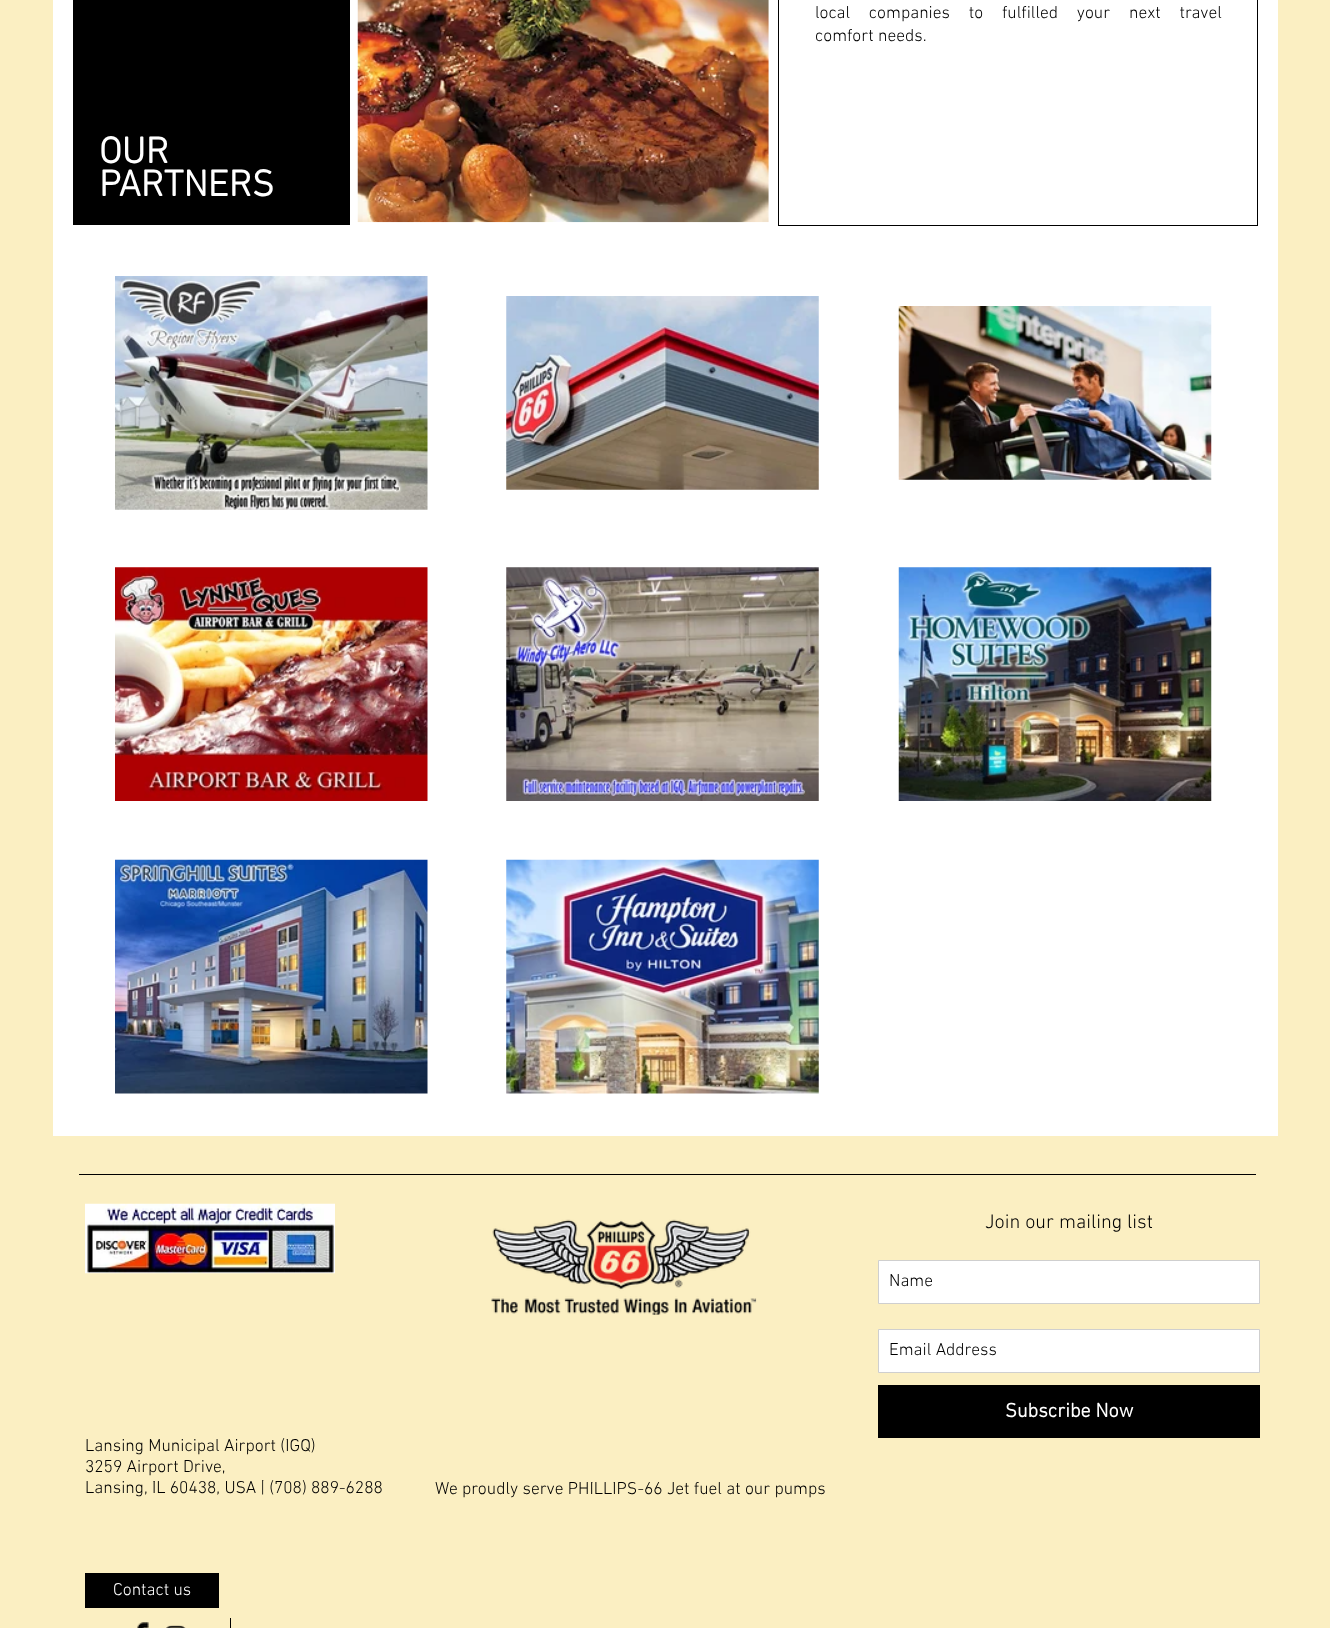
<!DOCTYPE html>
<meta charset="utf-8">
<style>body { margin: 0 } canvas { display: block }</style>
<canvas id="canvas" width="1330" height="1628"></canvas>
<script type="module">
  const canvas = document.getElementById("canvas");
  const g = canvas.getContext("2d");
  g.miterLimit = 4;
  g.fontKerning = "normal";
  function drawText(s, x, y, [font, color]) {
    g.font = font;
    g.fillStyle = color;
    g.fillText(s, x, y);
  }
  function fillBox(x, y, w, h, color) {
    g.fillStyle = color;
    g.fillRect(x, y, w, h);
  }
  async function drawPicture(src, x, y, w, h) {
    const img = new Image();
    img.src = src;
    await img.decode();
    g.drawImage(img, x, y, w, h);
  }

  const s1 = ["300 17.5px 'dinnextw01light'", "#000000"];
  const s2 = ["bold 37.5px 'dinnextw01light'", "#FFFFFF"];
  const s3 = ["300 20px 'dinnextw01light'", "#000000"];
  const s4 = ["bold 20px 'dinnextw01light'", "#FFFFFF"];
  const s5 = ["300 17.5px 'dinnextw01light'", "#FFFFFF"];

  fillBox(0, 0, 1330, 1628, "#FBEFC2");
  fillBox(53, 0, 1225, 1136, "#FFFFFF");
  await drawPicture("pic1.png", 357, 0, 412, 223);
  g.strokeStyle = "#000000";
  g.strokeRect(778.5, -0.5, 479, 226);
  g.wordSpacing = "14.5px";
  drawText("local companies to fulfilled your next travel", 815, 18, s1);
  g.wordSpacing = "0px";
  drawText("comfort needs.", 815, 41, s1);
  fillBox(73, 0, 277, 225, "#000000");
  drawText("OUR", 99, 163, s2);
  drawText("PARTNERS", 99, 196, s2);
  await drawPicture("pic2.png", 115, 276, 313, 234);
  await drawPicture("pic3.png", 506, 296, 313, 194);
  await drawPicture("pic4.png", 898, 306, 314, 174);
  await drawPicture("pic5.png", 115, 567, 313, 234);
  await drawPicture("pic6.png", 506, 567, 313, 234);
  await drawPicture("pic7.png", 898, 567, 314, 234);
  await drawPicture("pic8.png", 115, 859, 313, 235);
  await drawPicture("pic9.png", 506, 859, 313, 235);
  fillBox(79, 1174, 1177, 1, "#000000");
  await drawPicture("pic10.png", 85, 1203, 250, 71);
  await drawPicture("pic11.png", 491, 1219, 266, 96);
  drawText("Join our mailing list", 985, 1228, s3);
  g.fillStyle = "#FFFFFF";
  g.beginPath();
  g.rect(878.5, 1260.5, 381, 43);
  g.fill();
  g.strokeStyle = "#CFCFCF";
  g.stroke();
  drawText("Name", 889, 1286, s1);
  g.fillStyle = "#FFFFFF";
  g.beginPath();
  g.rect(878.5, 1329.5, 381, 43);
  g.fill();
  g.stroke();
  drawText("Email Address", 889, 1355, s1);
  fillBox(878, 1385, 382, 53, "#000000");
  drawText("Subscribe Now", 1005, 1417, s4);
  drawText("Lansing Municipal Airport (IGQ)", 85, 1451, s1);
  drawText("3259 Airport Drive,", 85, 1472, s1);
  drawText("Lansing, IL 60438, USA | (708) 889-6288", 85, 1493, s1);
  drawText("We proudly serve PHILLIPS-66 Jet fuel at our pumps", 435, 1494, s1);
  fillBox(85, 1573, 134, 35, "#000000");
  drawText("Contact us", 113, 1595, s5);
  await drawPicture("pic12.png", 137, 1622, 12, 6);
  await drawPicture("pic13.png", 166, 1625, 20, 3);
  fillBox(230, 1618, 1, 10, "#000000");
</script>
